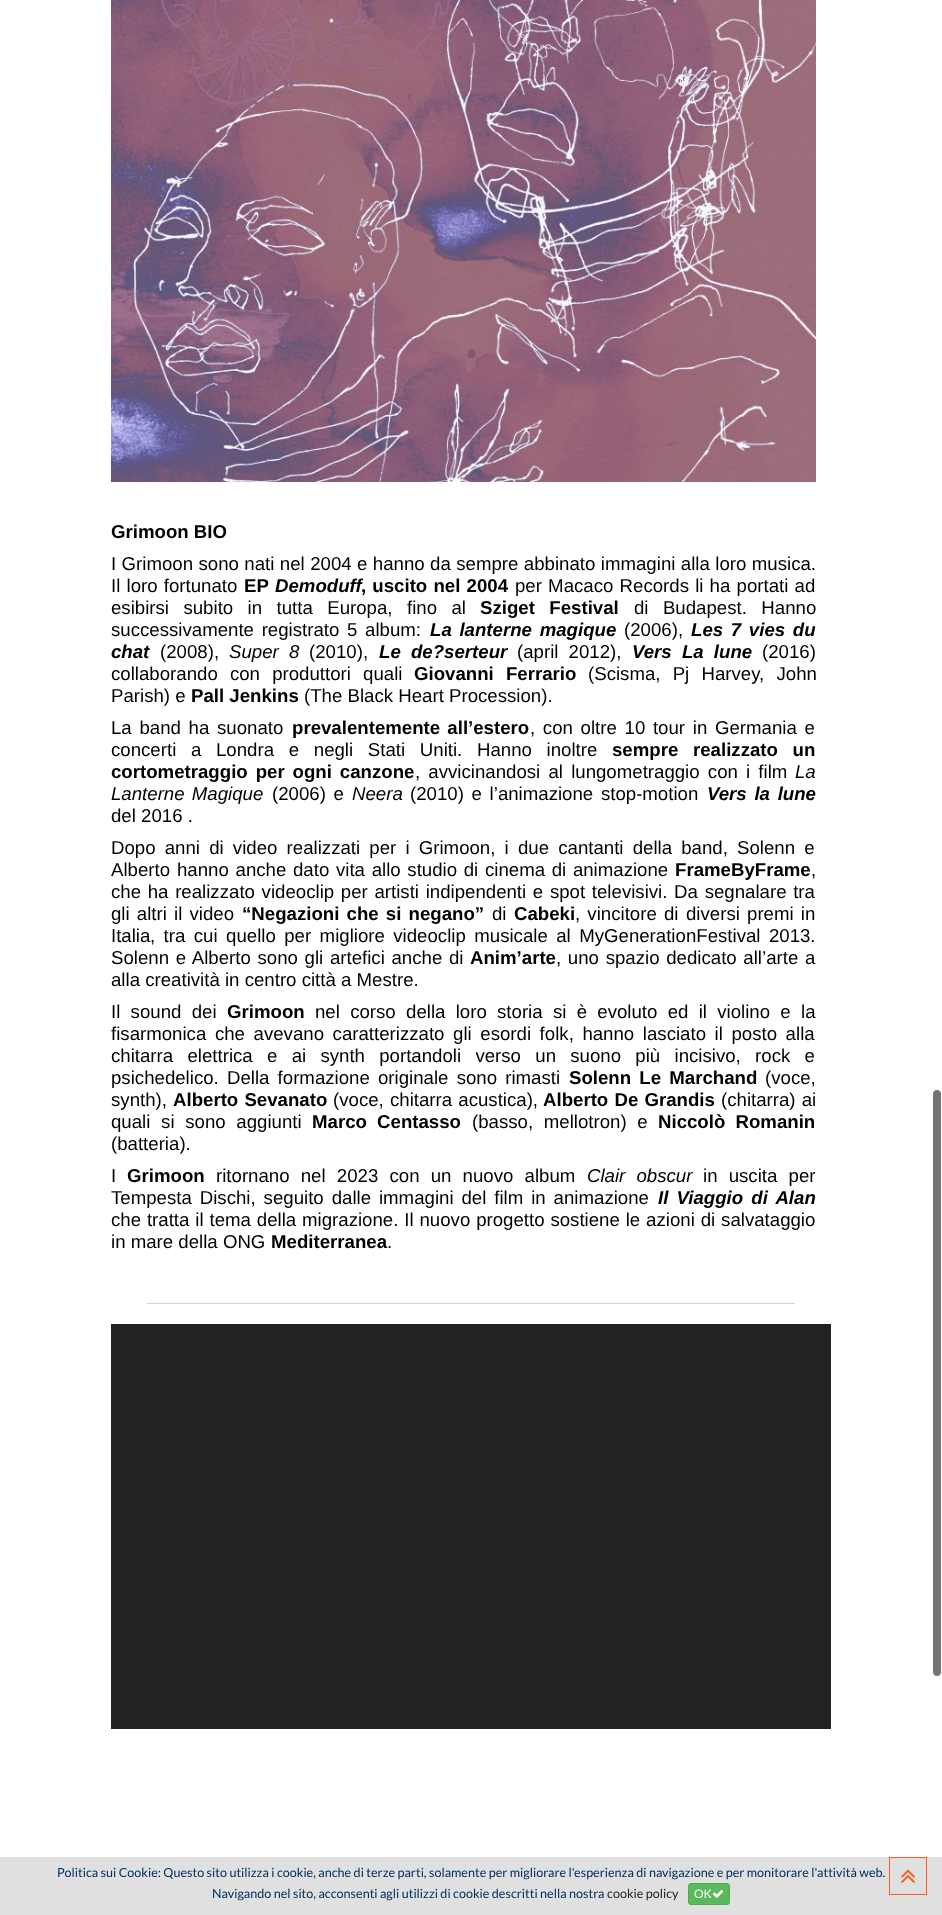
<!DOCTYPE html>
<meta charset="utf-8">
<style>body { margin: 0 } canvas { display: block }</style>
<canvas id="canvas" width="942" height="1915"></canvas>
<script type="module">
  const canvas = document.getElementById("canvas");
  const g = canvas.getContext("2d");
  g.miterLimit = 4;
  g.fontKerning = "normal";
  function drawText(s, x, y, [font, color]) {
    g.font = font;
    g.fillStyle = color;
    g.fillText(s, x, y);
  }
  function fillBox(x, y, w, h, color) {
    g.fillStyle = color;
    g.fillRect(x, y, w, h);
  }
  async function drawPicture(src, x, y, w, h) {
    const img = new Image();
    img.src = src;
    await img.decode();
    g.drawImage(img, x, y, w, h);
  }

  const s1 = ["bold 18.65px Liberation Sans", "#000000"];
  const s2 = ["18.65px Liberation Sans", "#000000"];
  const s3 = ["italic bold 18.65px Liberation Sans", "#000000"];
  const s4 = ["italic 18.65px Liberation Sans", "#000000"];
  const s5 = ["12.6px Lato", "#002E60"];
  const s6 = ["12.6px Lato", "#222222"];
  const s7 = ["12px Lato", "#FFFFFF"];

  fillBox(0, 0, 942, 1915, "#FFFFFF");
  await drawPicture("pic1.png", 111, 0, 705, 482);
  drawText("Grimoon BIO", 111, 538, s1);
  g.wordSpacing = "0.25px";
  drawText("I Grimoon sono nati nel 2004 e hanno da sempre abbinato immagini alla loro musica.", 111, 570, s2);
  g.wordSpacing = "1px";
  drawText("Il loro fortunato", 111, 592, s2);
  g.wordSpacing = "0px";
  drawText("EP", 244, 592, s1);
  drawText("Demoduff", 275, 592, s3);
  g.wordSpacing = "1px";
  drawText(", uscito nel 2004", 361, 592, s1);
  drawText("per Macaco Records li ha portati ad", 515, 592, s2);
  g.wordSpacing = "9.25px";
  drawText("esibirsi subito in tutta Europa, fino al", 111, 614, s2);
  drawText("Sziget Festival", 480, 614, s1);
  drawText("di Budapest. Hanno", 634, 614, s2);
  g.wordSpacing = "2.5px";
  drawText("successivamente registrato 5 album:", 111, 636, s2);
  drawText("La lanterne magique", 430, 636, s3);
  g.wordSpacing = "0px";
  drawText("(2006),", 624, 636, s2);
  g.wordSpacing = "2.5px";
  drawText("Les 7 vies du", 691, 636, s3);
  g.wordSpacing = "0px";
  drawText("chat", 111, 658, s3);
  drawText("(2008),", 160, 658, s2);
  g.wordSpacing = "5px";
  drawText("Super 8", 229, 658, s4);
  g.wordSpacing = "0px";
  drawText("(2010),", 309, 658, s2);
  g.wordSpacing = "5px";
  drawText("Le de?serteur", 379, 658, s3);
  drawText("(april 2012),", 517, 658, s2);
  drawText("Vers La lune", 632, 658, s3);
  g.wordSpacing = "0px";
  drawText("(2016)", 762, 658, s2);
  g.wordSpacing = "7px";
  drawText("collaborando con produttori quali", 111, 680, s2);
  drawText("Giovanni Ferrario", 414, 680, s1);
  drawText("(Scisma, Pj Harvey, John", 588, 680, s2);
  g.wordSpacing = "0px";
  drawText("Parish) e", 111, 702, s2);
  drawText("Pall Jenkins", 191, 702, s1);
  drawText("(The Black Heart Procession).", 304, 702, s2);
  g.wordSpacing = "2.5px";
  drawText("La band ha suonato", 111, 734, s2);
  g.wordSpacing = "2px";
  drawText("prevalentemente all’estero", 292, 734, s1);
  g.wordSpacing = "2.5px";
  drawText(", con oltre 10 tour in Germania e", 530, 734, s2);
  g.wordSpacing = "9.5px";
  drawText("concerti a Londra e negli Stati Uniti. Hanno inoltre", 111, 756, s2);
  drawText("sempre realizzato un", 612, 756, s1);
  g.wordSpacing = "2.75px";
  drawText("cortometraggio per ogni canzone", 111, 778, s1);
  g.wordSpacing = "3px";
  drawText(", avvicinandosi al lungometraggio con i film", 415, 778, s2);
  g.wordSpacing = "0px";
  drawText("La", 795, 778, s4);
  g.wordSpacing = "2px";
  drawText("Lanterne Magique", 111, 800, s4);
  g.wordSpacing = "2.5px";
  drawText("(2006) e", 272, 800, s2);
  g.wordSpacing = "0px";
  drawText("Neera", 352, 800, s4);
  g.wordSpacing = "2.5px";
  drawText("(2010) e l’animazione stop-motion", 410, 800, s2);
  drawText("Vers la lune", 707, 800, s3);
  g.wordSpacing = "0px";
  drawText("del 2016 .", 111, 822, s2);
  g.wordSpacing = "4px";
  drawText("Dopo anni di video realizzati per i Grimoon, i due cantanti della band, Solenn e", 111, 854, s2);
  g.wordSpacing = "0px";
  drawText("Alberto", 111, 876, s2);
  g.wordSpacing = "1.5px";
  drawText("hanno anche dato vita allo studio di cinema di animazione", 177, 876, s2);
  g.wordSpacing = "0px";
  drawText("FrameByFrame", 675, 876, s1);
  drawText(",", 811, 876, s2);
  g.wordSpacing = "1.5px";
  drawText("che ha realizzato videoclip per artisti indipendenti e spot televisivi. Da segnalare tra", 111, 898, s2);
  g.wordSpacing = "2px";
  drawText("gli altri il video", 111, 920, s2);
  drawText("“Negazioni che si negano”", 242, 920, s1);
  g.wordSpacing = "0px";
  drawText("di", 492, 920, s2);
  drawText("Cabeki", 514, 920, s1);
  g.wordSpacing = "2px";
  drawText(", vincitore di", 575, 920, s2);
  drawText("diversi premi in", 686, 920, s2);
  g.wordSpacing = "0px";
  drawText("Italia", 111, 942, s2);
  g.wordSpacing = "3.25px";
  drawText(", tra cui quello per migliore videoclip musicale al MyGenerationFestival 2013.", 150, 942, s2);
  g.wordSpacing = "1.5px";
  drawText("Solenn e Alberto sono gli artefici anche di", 111, 964, s2);
  g.wordSpacing = "0px";
  drawText("Anim’arte", 470, 964, s1);
  g.wordSpacing = "1.5px";
  drawText(", uno spazio dedicato all’arte a", 556, 964, s2);
  g.wordSpacing = "0px";
  drawText("alla creatività in centro città a Mestre.", 111, 986, s2);
  g.wordSpacing = "5.1px";
  drawText("Il sound dei", 111, 1018, s2);
  g.wordSpacing = "0px";
  drawText("Grimoon", 227, 1018, s1);
  g.wordSpacing = "5.1px";
  drawText("nel corso della loro storia si è evoluto ed il violino e la", 315, 1018, s2);
  g.wordSpacing = "3.4px";
  drawText("fisarmonica che avevano caratterizzato gli esordi folk, hanno lasciato il posto alla", 111, 1040, s2);
  g.wordSpacing = "9.1px";
  drawText("chitarra elettrica e ai synth portandoli verso un suono più incisivo, rock e", 111, 1062, s2);
  g.wordSpacing = "3px";
  drawText("psichedelico. Della formazione originale sono rimasti", 111, 1084, s2);
  drawText("Solenn Le Marchand", 569, 1084, s1);
  g.wordSpacing = "0px";
  drawText("(voce,", 765, 1084, s2);
  drawText("synth),", 111, 1106, s2);
  g.wordSpacing = "1px";
  drawText("Alberto Sevanato", 173, 1106, s1);
  drawText("(voce, chitarra acustica),", 333, 1106, s2);
  drawText("Alberto De Grandis", 543, 1106, s1);
  drawText("(chitarra) ai", 721, 1106, s2);
  g.wordSpacing = "5.5px";
  drawText("quali si sono aggiunti", 111, 1128, s2);
  g.wordSpacing = "5px";
  drawText("Marco Centasso", 312, 1128, s1);
  g.wordSpacing = "5.5px";
  drawText("(basso, mellotron) e", 472, 1128, s2);
  g.wordSpacing = "5px";
  drawText("Niccolò Romanin", 658, 1128, s1);
  g.wordSpacing = "0px";
  drawText("(batteria).", 111, 1150, s2);
  drawText("I", 111, 1182, s2);
  drawText("Grimoon", 127, 1182, s1);
  g.wordSpacing = "6px";
  drawText("ritornano nel 2023 con un nuovo album", 216, 1182, s2);
  drawText("Clair obscur", 587, 1182, s4);
  drawText("in uscita per", 703, 1182, s2);
  g.wordSpacing = "2.75px";
  drawText("Tempesta Dischi, seguito dalle immagini del film in animazione", 111, 1204, s2);
  g.wordSpacing = "3px";
  drawText("Il Viaggio di Alan", 658, 1204, s3);
  g.wordSpacing = "0.7px";
  drawText("che tratta il tema della migrazione. Il nuovo progetto sostiene le azioni di salvataggio", 111, 1226, s2);
  g.wordSpacing = "0px";
  drawText("in mare della ONG", 111, 1248, s2);
  drawText("Mediterranea", 271, 1248, s1);
  drawText(".", 387, 1248, s2);
  fillBox(147, 1303, 648, 1, "#D1D3D4");
  fillBox(111, 1324, 720, 405, "#222222");
  g.fillStyle = "#747474";
  g.beginPath();
  g.roundRect(932.5, 1089.5, 9, 587, 4.5);
  g.fill();
  g.strokeStyle = "#FFFFFF";
  g.stroke();
  fillBox(0, 1857, 942, 58, "#E0E0E0");
  drawText("Politica sui Cookie: Questo sito utilizza i cookie, anche di terze parti, solamente per migliorare l'esperienza di navigazione e per monitorare l'attività web.", 57, 1877, s5);
  drawText("Navigando nel sito, acconsenti agli utilizzi di cookie descritti nella nostra", 212, 1898, s5);
  drawText("cookie policy", 607, 1898, s6);
  g.fillStyle = "#5CB85C";
  g.beginPath();
  g.roundRect(688.5, 1883.5, 41, 21, 2.5);
  g.fill();
  g.strokeStyle = "#4CAE4C";
  g.stroke();
  drawText("OK", 694, 1898, s7);
  await drawPicture("pic2.png", 712, 1890, 12, 8);
  g.strokeStyle = "#FB5B21";
  g.strokeRect(889.5, 1857.5, 37, 37);
  await drawPicture("pic3.png", 901, 1869, 14, 14);
</script>
